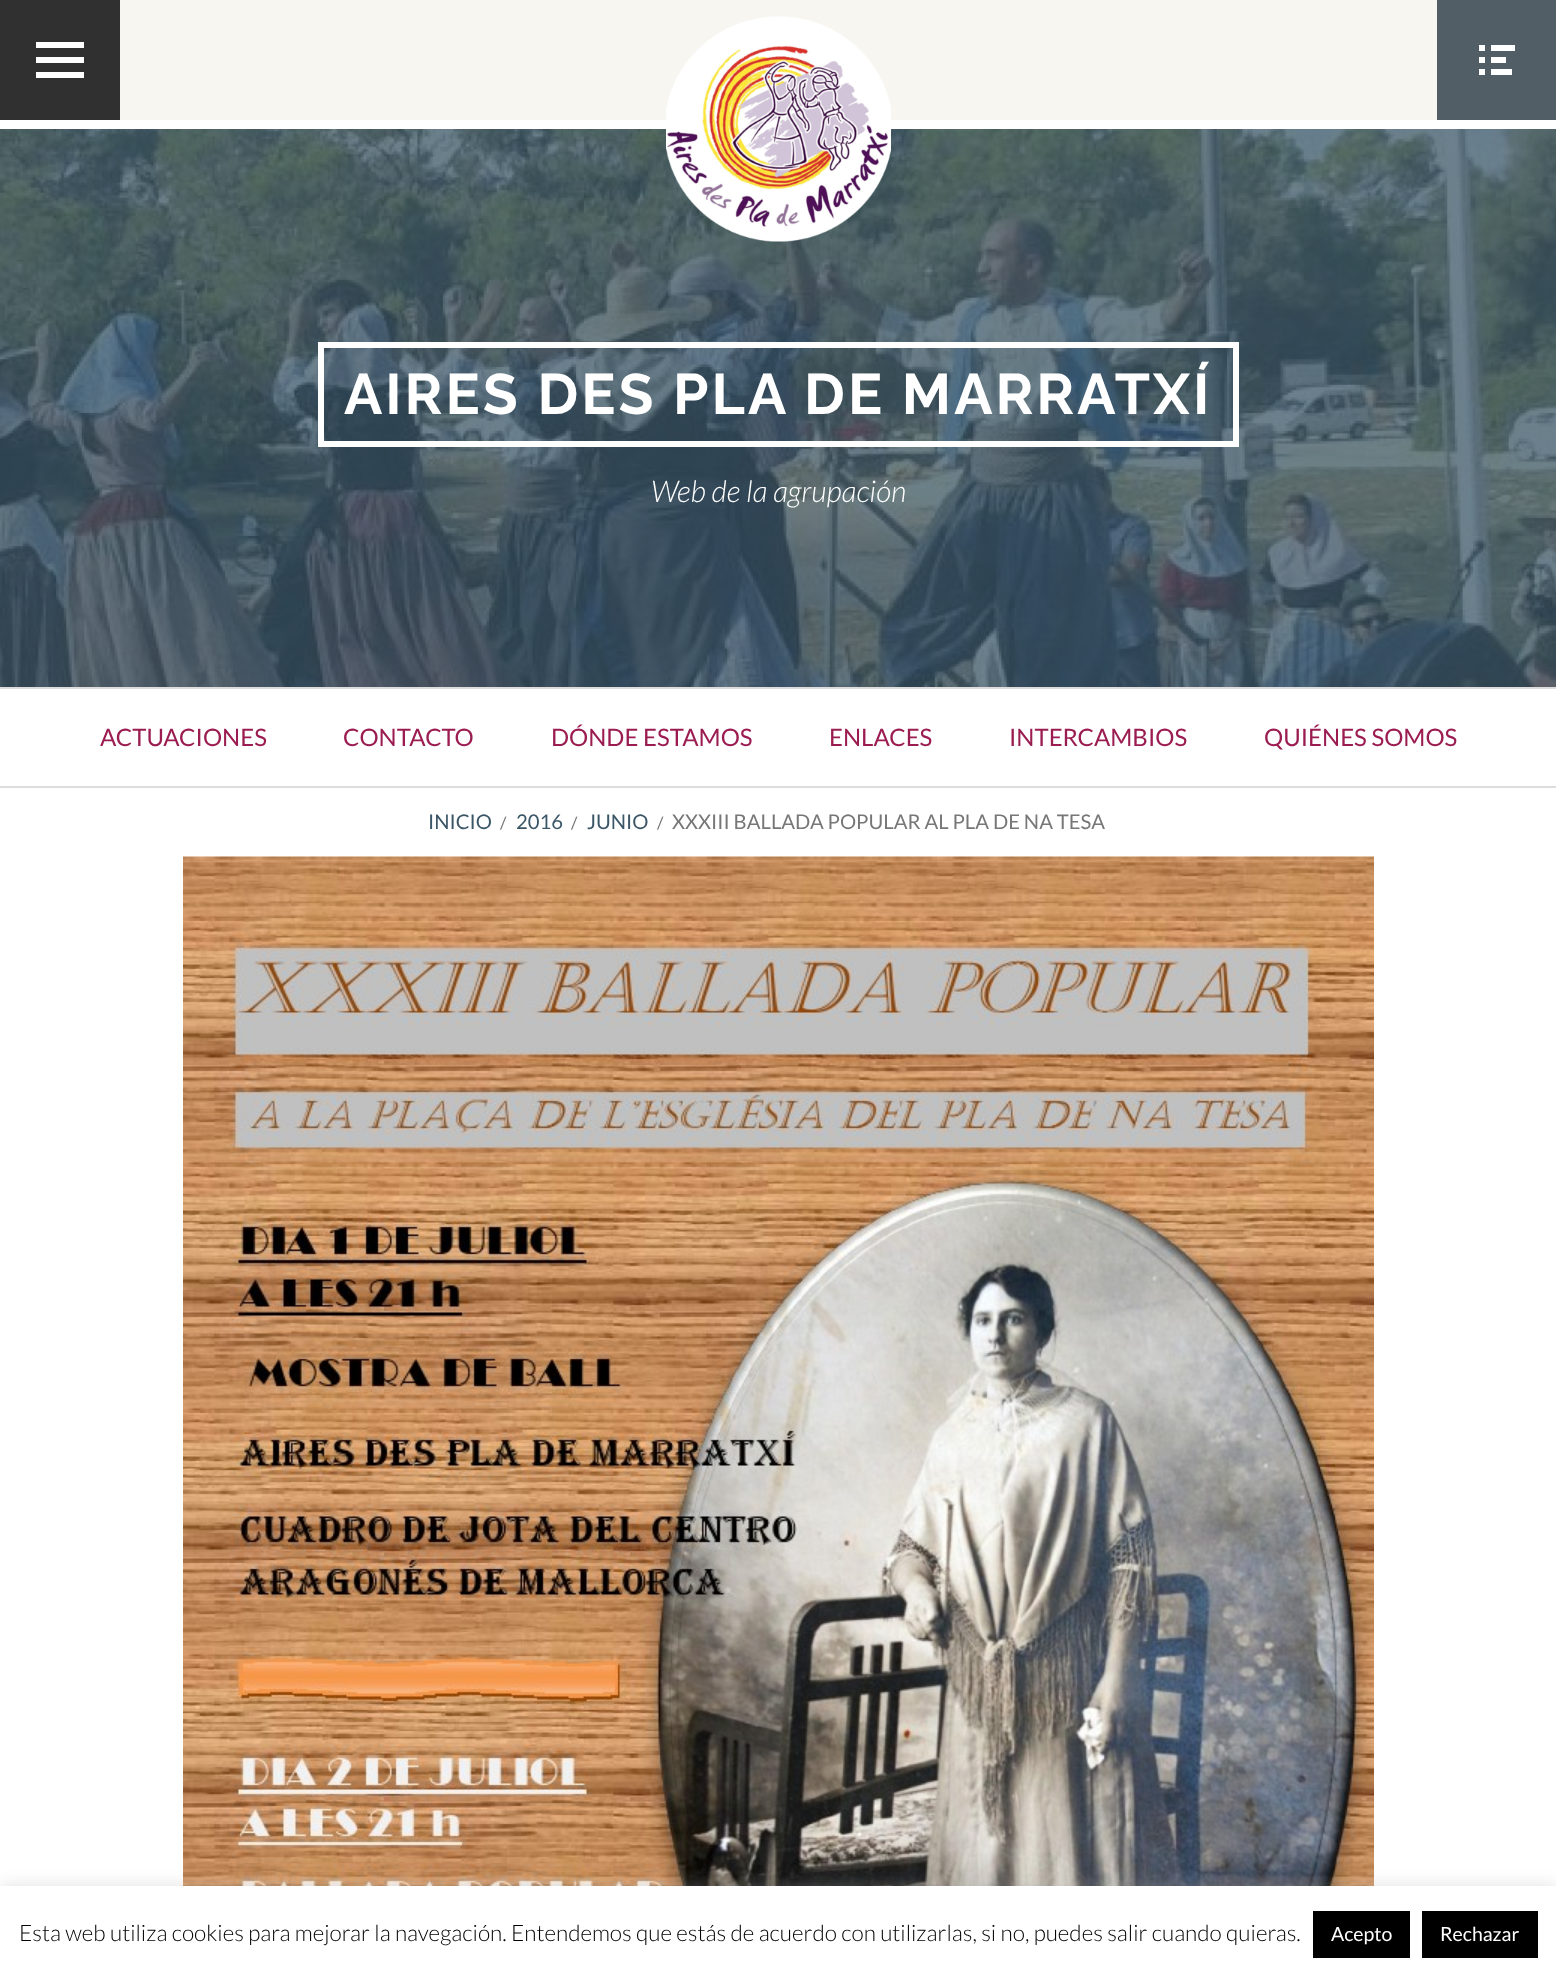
<!DOCTYPE html>
<meta charset="utf-8">
<style>body { margin: 0 } canvas { display: block }</style>
<canvas id="canvas" width="1556" height="1975"></canvas>
<script type="module">
  const canvas = document.getElementById("canvas");
  const g = canvas.getContext("2d");
  g.miterLimit = 4;
  g.fontKerning = "normal";
  function drawText(s, x, y, [font, color]) {
    g.font = font;
    g.fillStyle = color;
    g.fillText(s, x, y);
  }
  function fillBox(x, y, w, h, color) {
    g.fillStyle = color;
    g.fillRect(x, y, w, h);
  }
  async function drawPicture(src, x, y, w, h) {
    const img = new Image();
    img.src = src;
    await img.decode();
    g.drawImage(img, x, y, w, h);
  }

  const s1 = ["bold 57px Raleway", "#FFFFFF"];
  const s2 = ["italic 300 30px Lato", "#FFFFFF"];
  const s3 = ["24px Lato", "#9B1C51"];
  const s4 = ["20.25px Lato", "#3B5667"];
  const s5 = ["17px Lato", "#777777"];
  const s6 = ["20.25px Lato", "#777777"];
  const s7 = ["300 22.5px Lato", "#000000"];
  const s8 = ["19.5px Lato", "#FFFFFF"];

  fillBox(0, 0, 1556, 1975, "#FFFFFF");
  fillBox(120, 0, 1317, 120, "#F7F6F1");
  fillBox(0, 0, 120, 120, "#303030");
  g.fillStyle = "#FFFFFF";
  g.beginPath();
  g.moveTo(36, 78);
  g.lineTo(36, 72);
  g.lineTo(84, 72);
  g.lineTo(84, 78);
  g.closePath();
  g.moveTo(36, 42);
  g.lineTo(84, 42);
  g.lineTo(84, 48);
  g.lineTo(36, 48);
  g.closePath();
  g.moveTo(36, 63);
  g.lineTo(36, 57);
  g.lineTo(84, 57);
  g.lineTo(84, 63);
  g.closePath();
  g.fill();
  fillBox(1437, 0, 119, 120, "#525E66");
  await drawPicture("pic1.png", 1479, 45, 36, 30);
  await drawPicture("pic2.png", 0, 129, 1556, 558);
  fillBox(0, 687, 1556, 2, "#DDDDDD");
  await drawPicture("pic3.png", 666, 16, 225, 226);
  g.strokeStyle = "#FFFFFF";
  g.lineWidth = 6;
  g.strokeRect(321, 345, 915, 99);
  g.letterSpacing = "3px";
  drawText("AIRES DES PLA DE MARRATXÍ", 344, 414, s1);
  g.letterSpacing = "0px";
  drawText("Web de la agrupación", 651, 502, s2);
  fillBox(0, 786, 1556, 2, "#DDDDDD");
  drawText("ACTUACIONES", 100, 746, s3);
  drawText("CONTACTO", 343, 746, s3);
  drawText("DÓNDE ESTAMOS", 551, 746, s3);
  drawText("ENLACES", 829, 746, s3);
  drawText("INTERCAMBIOS", 1009, 746, s3);
  drawText("QUIÉNES SOMOS", 1264, 746, s3);
  drawText("INICIO", 428, 829, s4);
  drawText("/", 500, 829, s5);
  drawText("2016", 516, 829, s4);
  drawText("/", 571, 829, s5);
  drawText("JUNIO", 587, 829, s4);
  drawText("/", 657, 829, s5);
  drawText("XXXIII BALLADA POPULAR AL PLA DE NA TESA", 672, 829, s6);
  await drawPicture("pic4.png", 183, 856, 1191, 1030);
  g.fillStyle = "rgba(172, 171, 171, 0.3)";
  g.filter = "blur(7.5px)";
  g.beginPath();
  g.rect(0, 1884, 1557, 90);
  g.fill();
  g.filter = "none";
  fillBox(0, 1886, 1556, 89, "#FFFFFF");
  drawText("Esta web utiliza cookies para mejorar la navegación. Entendemos que estás de acuerdo con utilizarlas, si no, puedes salir cuando quieras.", 19, 1941, s7);
  fillBox(1313, 1911, 97, 47, "#000000");
  drawText("Acepto", 1331, 1941, s8);
  fillBox(1422, 1911, 116, 47, "#000000");
  drawText("Rechazar", 1440, 1941, s8);
</script>
